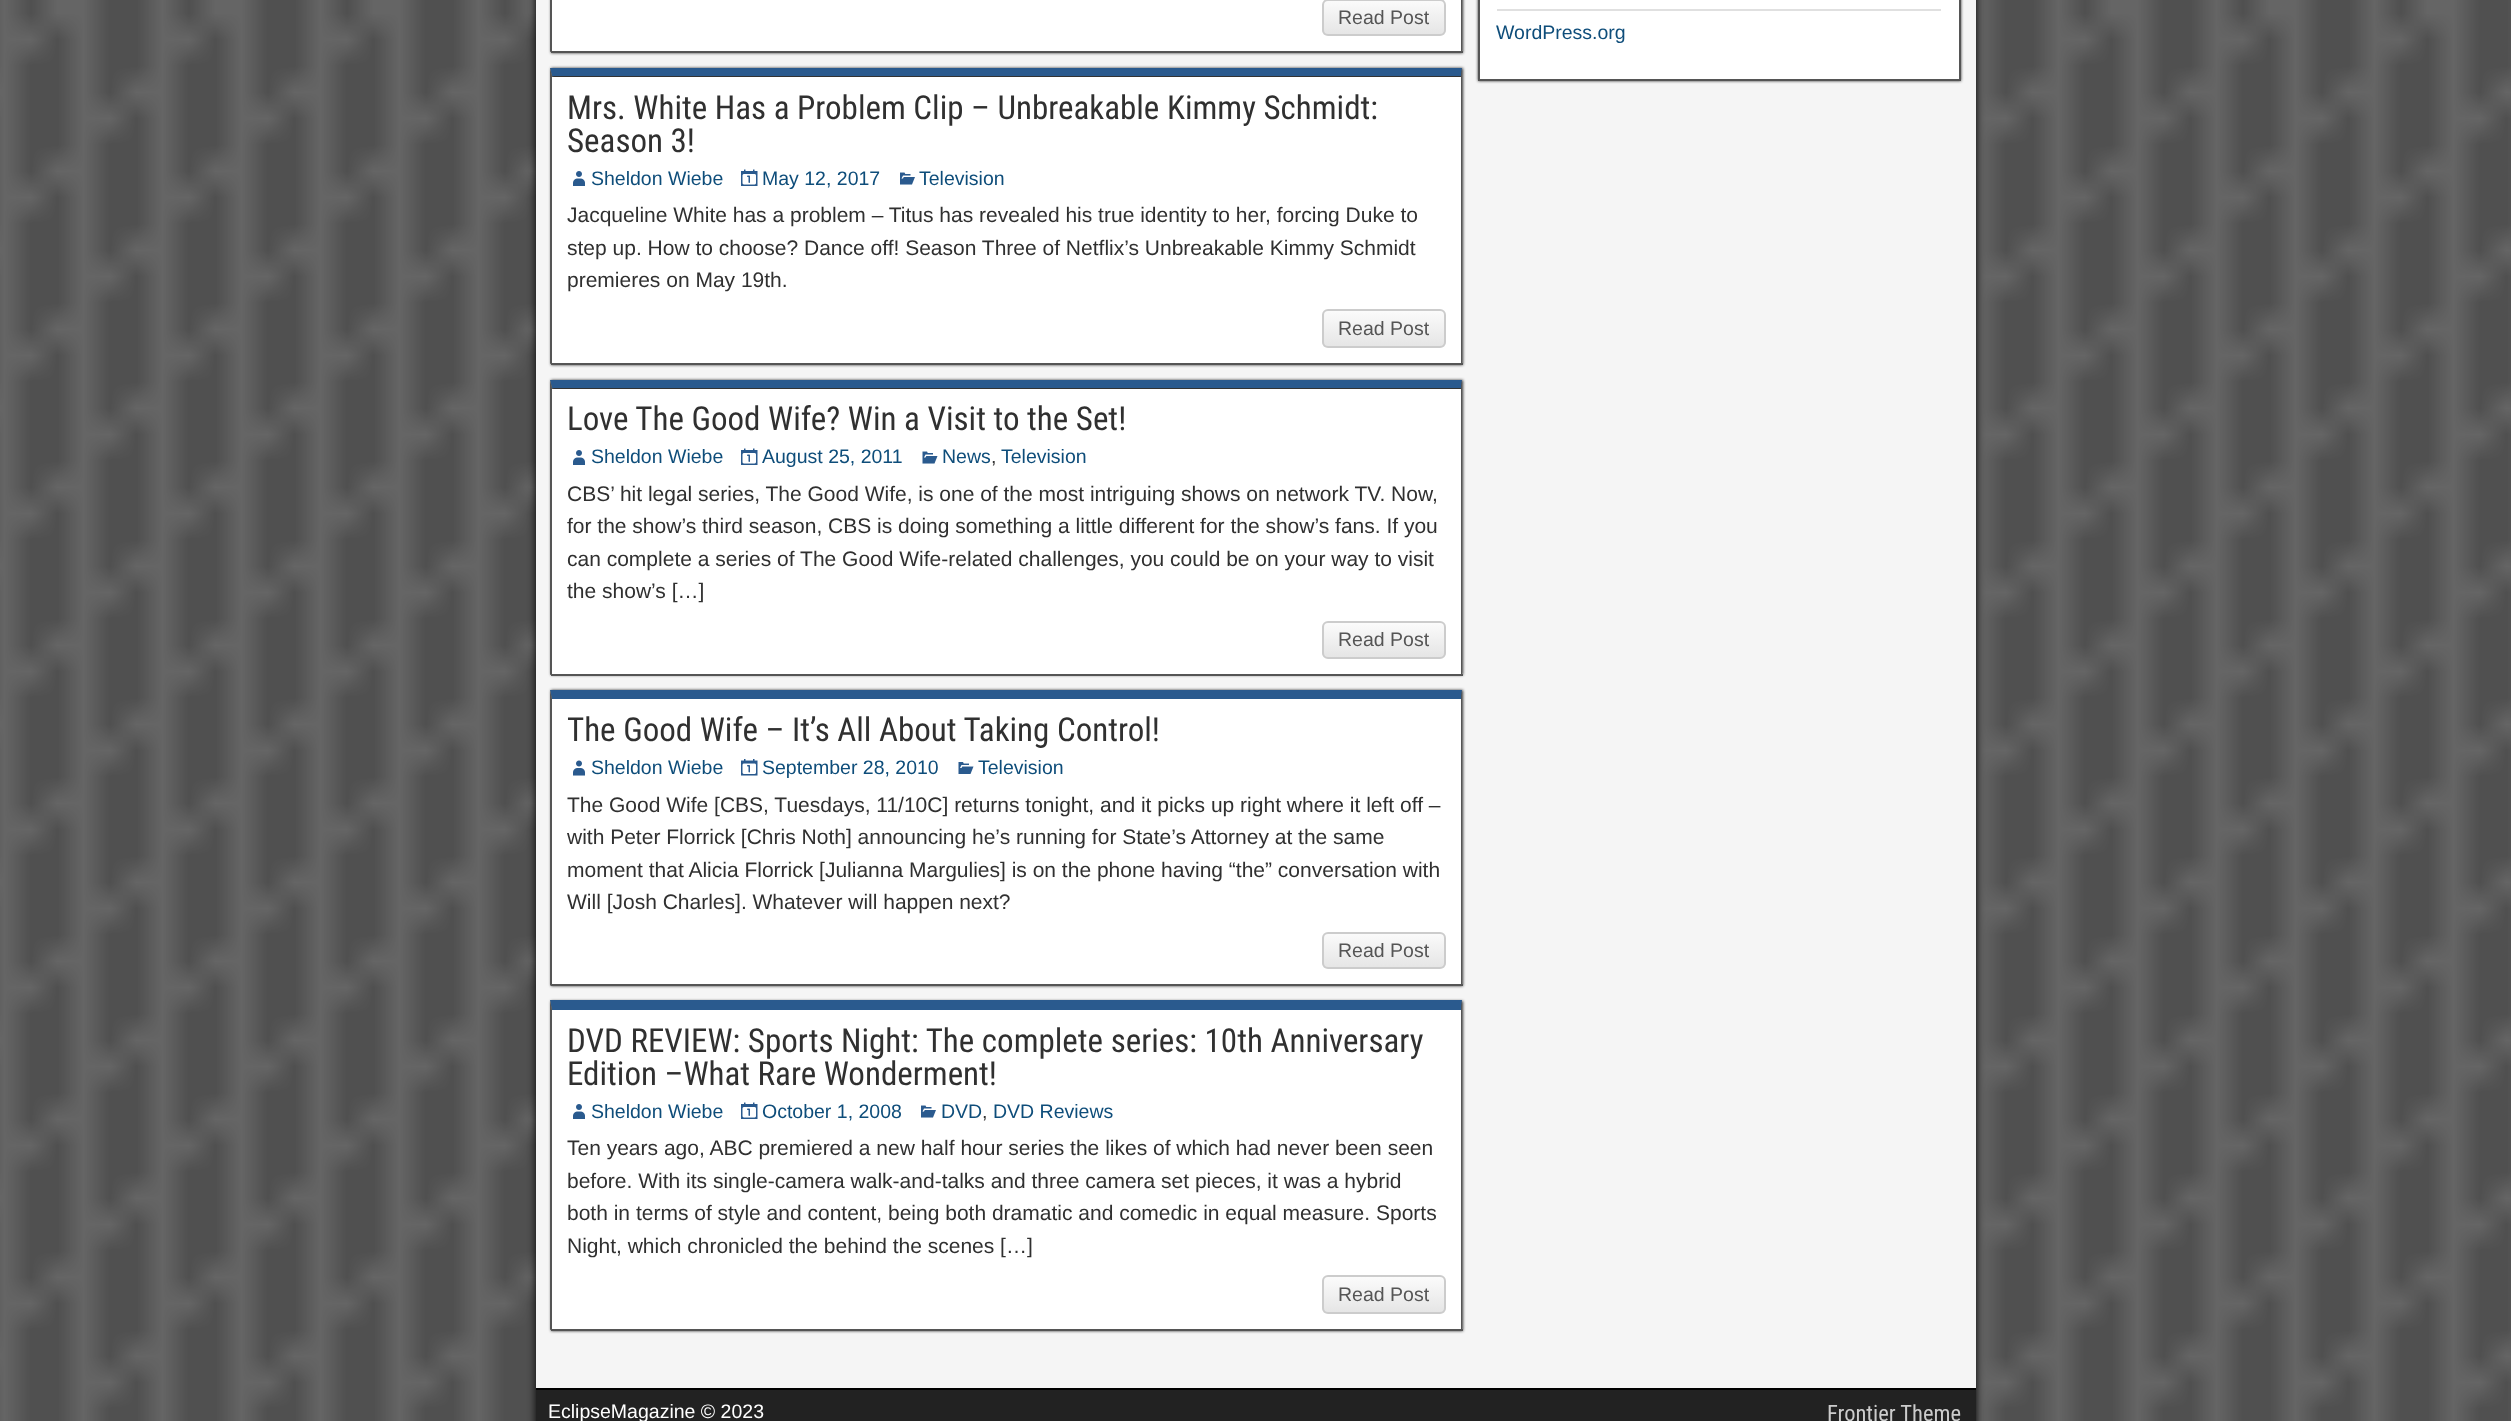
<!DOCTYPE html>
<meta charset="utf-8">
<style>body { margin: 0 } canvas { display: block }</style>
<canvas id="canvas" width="2511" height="1421"></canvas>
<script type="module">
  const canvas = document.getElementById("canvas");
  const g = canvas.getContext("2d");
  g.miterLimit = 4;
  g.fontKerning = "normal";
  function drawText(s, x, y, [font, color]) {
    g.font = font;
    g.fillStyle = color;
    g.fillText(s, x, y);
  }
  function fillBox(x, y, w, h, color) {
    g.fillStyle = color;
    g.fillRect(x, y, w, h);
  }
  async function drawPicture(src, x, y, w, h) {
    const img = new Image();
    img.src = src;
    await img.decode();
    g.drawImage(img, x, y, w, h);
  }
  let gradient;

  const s1 = ["19.5px Liberation Sans", "#555555"];
  const s2 = ["33px Roboto Condensed", "#303030"];
  const s3 = ["19.5px Liberation Sans", "#0E4D7A"];
  const s4 = ["21px Arimo", "#303030"];
  const s5 = ["19.5px Liberation Sans", "#303030"];
  const s6 = ["19.5px Liberation Sans", "#FFFFFF"];
  const s7 = ["22.5px Roboto Condensed", "#CCCCCC"];

  fillBox(0, 0, 2511, 1421, "#505050");
  await drawPicture("pic1.png", 0, 0, 2511, 1421);
  g.fillStyle = "#000000";
  g.filter = "blur(4.5px)";
  g.beginPath();
  g.rect(536, -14, 1440, 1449);
  g.fill();
  g.filter = "none";
  fillBox(536, 0, 1440, 1388, "#F5F5F5");
  g.fillStyle = "#333333";
  g.filter = "blur(1.5px)";
  g.beginPath();
  g.rect(551, -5, 912, 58);
  g.fill();
  g.filter = "none";
  fillBox(552, 0, 909, 51, "#FFFFFF");
  g.fillStyle = "#555555";
  g.beginPath();
  g.moveTo(1462, -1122);
  g.lineTo(1462, 52);
  g.lineTo(1461, 51);
  g.lineTo(1461, -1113);
  g.closePath();
  g.fill();
  fillBox(551, 51, 912, 2, "#555555");
  g.beginPath();
  g.moveTo(550, 52);
  g.lineTo(550, -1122);
  g.lineTo(552, -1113);
  g.lineTo(552, 51);
  g.closePath();
  g.fill();
  g.save();
  g.beginPath();
  g.roundRect(1322, -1, 124, 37, 6);
  g.clip();
  gradient = g.createLinearGradient(1384, 0, 1384, 35);
  gradient.addColorStop(0, "#FBFBFB");
  gradient.addColorStop(1, "#E5E5E5");
  g.fillStyle = gradient;
  g.fillRect(1322, 0, 124, 35);
  g.restore();
  g.beginPath();
  g.roundRect(1323, 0, 122, 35, 5);
  g.strokeStyle = "#CCCCCC";
  g.lineWidth = 2;
  g.stroke();
  drawText("Read Post", 1338, 24, s1);
  g.fillStyle = "#333333";
  g.filter = "blur(1.5px)";
  g.beginPath();
  g.rect(551, 68, 912, 297);
  g.fill();
  g.filter = "none";
  fillBox(552, 77, 909, 286, "#FFFFFF");
  g.fillStyle = "#2A5A8E";
  g.beginPath();
  g.moveTo(550, 68);
  g.lineTo(1462, 68);
  g.lineTo(1461, 76);
  g.lineTo(552, 76);
  g.closePath();
  g.fill();
  g.fillStyle = "#555555";
  g.beginPath();
  g.moveTo(1462, 68);
  g.lineTo(1462, 364);
  g.lineTo(1461, 363);
  g.lineTo(1461, 76);
  g.closePath();
  g.fill();
  fillBox(551, 363, 912, 2, "#555555");
  g.beginPath();
  g.moveTo(550, 364);
  g.lineTo(550, 68);
  g.lineTo(552, 76);
  g.lineTo(552, 363);
  g.closePath();
  g.fill();
  drawText("Mrs. White Has a Problem Clip – Unbreakable Kimmy Schmidt:", 567, 119, s2);
  drawText("Season 3!", 567, 152, s2);
  await drawPicture("pic2.png", 573, 171, 12, 15);
  drawText("Sheldon Wiebe", 591, 185, s3);
  await drawPicture("pic3.png", 741, 169, 17, 17);
  drawText("May 12, 2017", 762, 185, s3);
  await drawPicture("pic4.png", 900, 172, 15, 13);
  drawText("Television", 919, 185, s3);
  drawText("Jacqueline White has a problem – Titus has revealed his true identity to her, forcing Duke to", 567, 222, s4);
  drawText("step up. How to choose? Dance off! Season Three of Netflix’s Unbreakable Kimmy Schmidt", 567, 255, s4);
  drawText("premieres on May 19th.", 567, 287, s4);
  g.save();
  g.beginPath();
  g.roundRect(1322, 309, 124, 39, 6);
  g.clip();
  gradient = g.createLinearGradient(1384, 311, 1384, 347);
  gradient.addColorStop(0, "#FBFBFB");
  gradient.addColorStop(1, "#E5E5E5");
  g.fillStyle = gradient;
  g.fillRect(1322, 311, 124, 36);
  g.restore();
  g.beginPath();
  g.roundRect(1323, 310, 122, 37, 5);
  g.stroke();
  drawText("Read Post", 1338, 335, s1);
  g.fillStyle = "#333333";
  g.filter = "blur(1.5px)";
  g.beginPath();
  g.rect(551, 380, 912, 295);
  g.fill();
  g.filter = "none";
  fillBox(552, 389, 909, 285, "#FFFFFF");
  g.fillStyle = "#2A5A8E";
  g.beginPath();
  g.moveTo(550, 380);
  g.lineTo(1462, 380);
  g.lineTo(1461, 388);
  g.lineTo(552, 388);
  g.closePath();
  g.fill();
  g.fillStyle = "#555555";
  g.beginPath();
  g.moveTo(1462, 380);
  g.lineTo(1462, 675);
  g.lineTo(1461, 674);
  g.lineTo(1461, 388);
  g.closePath();
  g.fill();
  fillBox(551, 674, 912, 2, "#555555");
  g.beginPath();
  g.moveTo(550, 675);
  g.lineTo(550, 380);
  g.lineTo(552, 388);
  g.lineTo(552, 674);
  g.closePath();
  g.fill();
  drawText("Love The Good Wife? Win a Visit to the Set!", 567, 430, s2);
  await drawPicture("pic2.png", 573, 450, 12, 15);
  drawText("Sheldon Wiebe", 591, 463, s3);
  await drawPicture("pic3.png", 741, 448, 17, 17);
  drawText("August 25, 2011", 762, 463, s3);
  await drawPicture("pic5.png", 922, 451, 16, 13);
  drawText("News", 942, 463, s3);
  drawText(",", 991, 463, s5);
  drawText("Television", 1001, 463, s3);
  drawText("CBS’ hit legal series, The Good Wife, is one of the most intriguing shows on network TV. Now,", 567, 501, s4);
  drawText("for the show’s third season, CBS is doing something a little different for the show’s fans. If you", 567, 533, s4);
  drawText("can complete a series of The Good Wife-related challenges, you could be on your way to visit", 567, 566, s4);
  drawText("the show’s […]", 567, 598, s4);
  g.save();
  g.beginPath();
  g.roundRect(1322, 621, 124, 38, 6);
  g.clip();
  gradient = g.createLinearGradient(1384, 623, 1384, 657);
  gradient.addColorStop(0, "#FBFBFB");
  gradient.addColorStop(1, "#E5E5E5");
  g.fillStyle = gradient;
  g.fillRect(1322, 623, 124, 34);
  g.restore();
  g.beginPath();
  g.roundRect(1323, 622, 122, 36, 5);
  g.stroke();
  drawText("Read Post", 1338, 646, s1);
  g.fillStyle = "#333333";
  g.filter = "blur(1.5px)";
  g.beginPath();
  g.rect(551, 690, 912, 296);
  g.fill();
  g.filter = "none";
  fillBox(552, 699, 909, 285, "#FFFFFF");
  g.fillStyle = "#2A5A8E";
  g.beginPath();
  g.moveTo(550, 690);
  g.lineTo(1462, 690);
  g.lineTo(1461, 699);
  g.lineTo(552, 699);
  g.closePath();
  g.fill();
  g.fillStyle = "#555555";
  g.beginPath();
  g.moveTo(1462, 690);
  g.lineTo(1462, 986);
  g.lineTo(1461, 984);
  g.lineTo(1461, 699);
  g.closePath();
  g.fill();
  fillBox(551, 984, 912, 2, "#555555");
  g.beginPath();
  g.moveTo(550, 986);
  g.lineTo(550, 690);
  g.lineTo(552, 699);
  g.lineTo(552, 984);
  g.closePath();
  g.fill();
  drawText("The Good Wife – It’s All About Taking Control!", 567, 741, s2);
  await drawPicture("pic6.png", 573, 760, 12, 16);
  drawText("Sheldon Wiebe", 591, 774, s3);
  await drawPicture("pic7.png", 741, 759, 17, 17);
  drawText("September 28, 2010", 762, 774, s3);
  await drawPicture("pic8.png", 958, 762, 16, 12);
  drawText("Television", 978, 774, s3);
  drawText("The Good Wife [CBS, Tuesdays, 11/10C] returns tonight, and it picks up right where it left off –", 567, 812, s4);
  drawText("with Peter Florrick [Chris Noth] announcing he’s running for State’s Attorney at the same", 567, 844, s4);
  drawText("moment that Alicia Florrick [Julianna Margulies] is on the phone having “the” conversation with", 567, 877, s4);
  drawText("Will [Josh Charles]. Whatever will happen next?", 567, 909, s4);
  g.save();
  g.beginPath();
  g.roundRect(1322, 932, 124, 37, 6);
  g.clip();
  gradient = g.createLinearGradient(1384, 933, 1384, 968);
  gradient.addColorStop(0, "#FBFBFB");
  gradient.addColorStop(1, "#E5E5E5");
  g.fillStyle = gradient;
  g.fillRect(1322, 933, 124, 35);
  g.restore();
  g.beginPath();
  g.roundRect(1323, 933, 122, 35, 5);
  g.stroke();
  drawText("Read Post", 1338, 957, s1);
  g.fillStyle = "#333333";
  g.filter = "blur(1.5px)";
  g.beginPath();
  g.rect(551, 1001, 912, 330);
  g.fill();
  g.filter = "none";
  fillBox(552, 1010, 909, 319, "#FFFFFF");
  g.fillStyle = "#2A5A8E";
  g.beginPath();
  g.moveTo(550, 1000);
  g.lineTo(1462, 1000);
  g.lineTo(1461, 1010);
  g.lineTo(552, 1010);
  g.closePath();
  g.fill();
  g.fillStyle = "#555555";
  g.beginPath();
  g.moveTo(1462, 1000);
  g.lineTo(1462, 1330);
  g.lineTo(1461, 1329);
  g.lineTo(1461, 1010);
  g.closePath();
  g.fill();
  fillBox(551, 1329, 912, 2, "#555555");
  g.beginPath();
  g.moveTo(550, 1330);
  g.lineTo(550, 1000);
  g.lineTo(552, 1010);
  g.lineTo(552, 1329);
  g.closePath();
  g.fill();
  drawText("DVD REVIEW: Sports Night: The complete series: 10th Anniversary", 567, 1052, s2);
  drawText("Edition –What Rare Wonderment!", 567, 1085, s2);
  await drawPicture("pic2.png", 573, 1104, 12, 15);
  drawText("Sheldon Wiebe", 591, 1118, s3);
  await drawPicture("pic3.png", 741, 1102, 17, 17);
  drawText("October 1, 2008", 762, 1118, s3);
  await drawPicture("pic4.png", 921, 1105, 15, 13);
  drawText("DVD", 941, 1118, s3);
  drawText(",", 982, 1118, s5);
  drawText("DVD Reviews", 993, 1118, s3);
  drawText("Ten years ago, ABC premiered a new half hour series the likes of which had never been seen", 567, 1155, s4);
  drawText("before. With its single-camera walk-and-talks and three camera set pieces, it was a hybrid", 567, 1188, s4);
  drawText("both in terms of style and content, being both dramatic and comedic in equal measure. Sports", 567, 1220, s4);
  drawText("Night, which chronicled the behind the scenes […]", 567, 1253, s4);
  g.save();
  g.beginPath();
  g.roundRect(1322, 1275, 124, 39, 6);
  g.clip();
  gradient = g.createLinearGradient(1384, 1277, 1384, 1313);
  gradient.addColorStop(0, "#FBFBFB");
  gradient.addColorStop(1, "#E5E5E5");
  g.fillStyle = gradient;
  g.fillRect(1322, 1277, 124, 36);
  g.restore();
  g.beginPath();
  g.roundRect(1323, 1276, 122, 37, 5);
  g.stroke();
  drawText("Read Post", 1338, 1301, s1);
  g.fillStyle = "#333333";
  g.filter = "blur(1.5px)";
  g.beginPath();
  g.rect(1478, -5, 483, 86);
  g.fill();
  g.filter = "none";
  g.fillStyle = "#FFFFFF";
  g.beginPath();
  g.rect(1479, -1, 481, 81);
  g.fill();
  g.strokeStyle = "#555555";
  g.stroke();
  fillBox(1497, 9, 444, 2, "#E0E0E0");
  drawText("WordPress.org", 1496, 39, s3);
  fillBox(536, 1390, 1440, 31, "#222222");
  fillBox(536, 1388, 1440, 2, "#000000");
  drawText("EclipseMagazine © 2023", 548, 1418, s6);
  drawText("Frontier Theme", 1827, 1421, s7);
</script>
